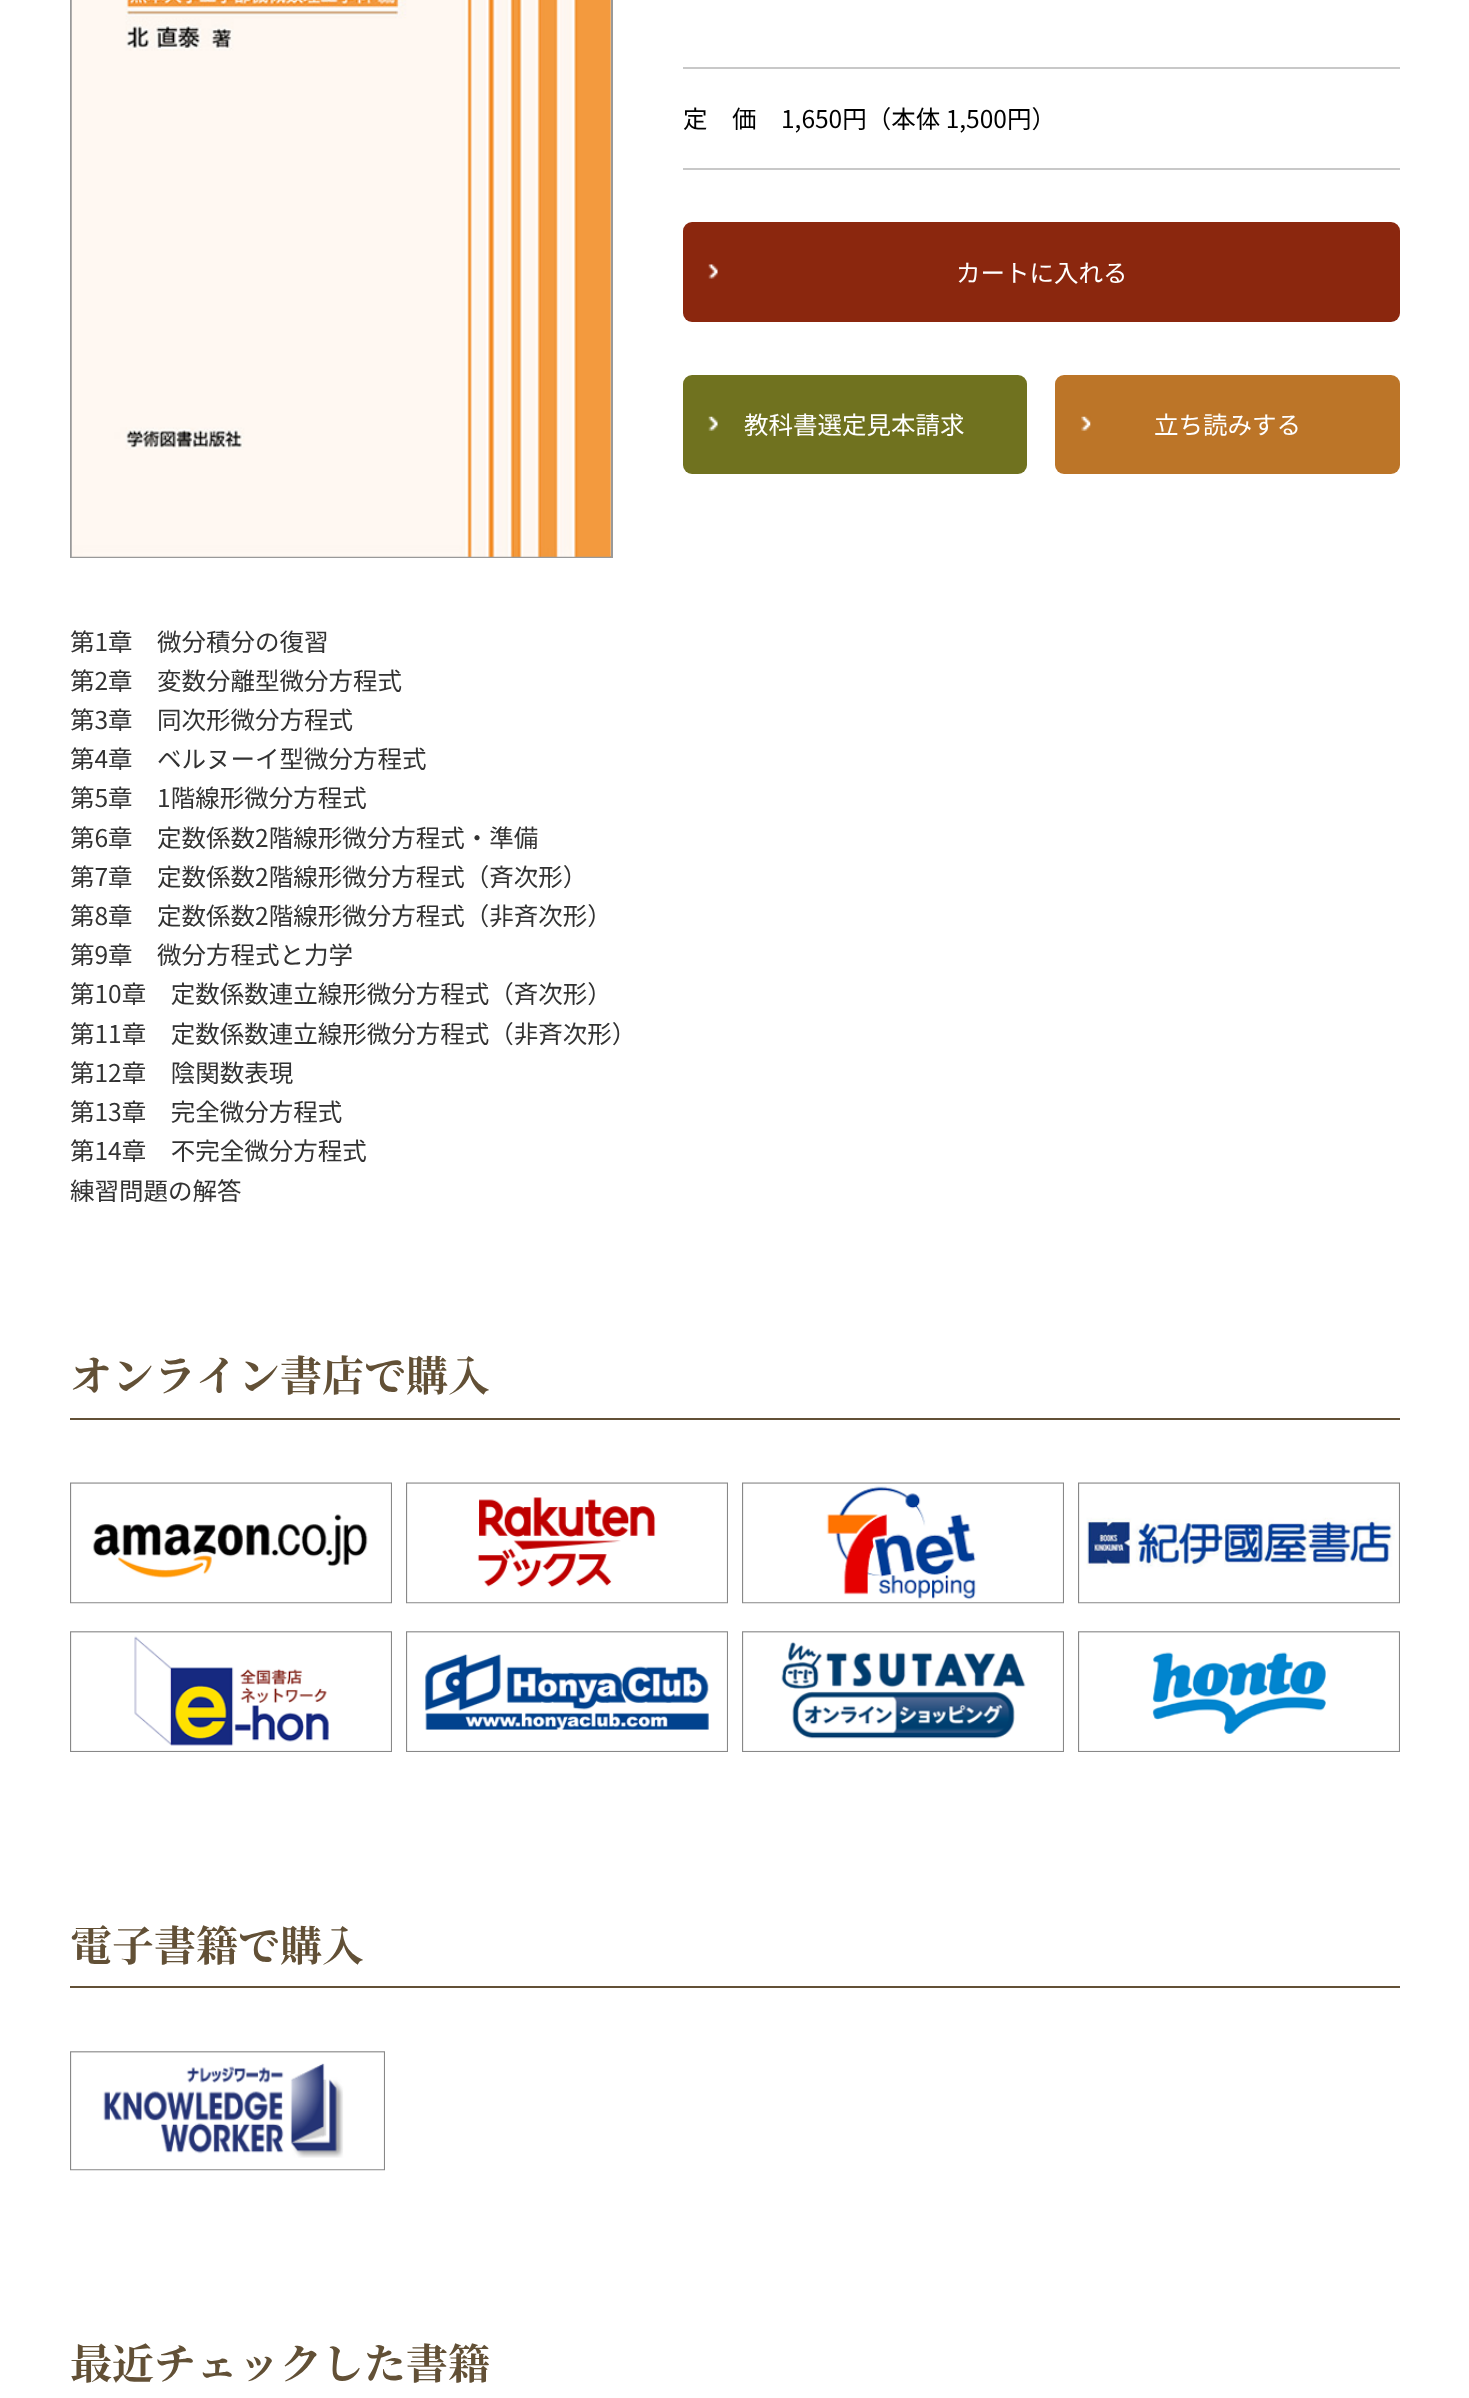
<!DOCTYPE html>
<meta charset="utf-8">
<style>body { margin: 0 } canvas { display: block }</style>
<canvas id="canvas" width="1469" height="2398"></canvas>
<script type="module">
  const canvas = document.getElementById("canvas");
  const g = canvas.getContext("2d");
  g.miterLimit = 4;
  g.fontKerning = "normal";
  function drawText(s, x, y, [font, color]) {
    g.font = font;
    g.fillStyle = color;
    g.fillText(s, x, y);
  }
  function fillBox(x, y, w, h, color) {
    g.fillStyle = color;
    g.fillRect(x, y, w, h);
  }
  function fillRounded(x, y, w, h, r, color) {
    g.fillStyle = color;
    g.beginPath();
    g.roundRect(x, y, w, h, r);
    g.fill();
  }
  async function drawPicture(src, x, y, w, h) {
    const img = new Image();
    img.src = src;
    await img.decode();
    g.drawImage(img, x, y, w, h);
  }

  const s1 = ["24.5px Noto Sans JP", "#000000"];
  const s2 = ["24.5px Noto Sans JP", "#FFFFFF"];
  const s3 = ["24.5px Noto Sans JP", "#323232"];
  const s4 = ["bold 42px Noto Serif JP", "#625036"];

  fillBox(0, 0, 1469, 2398, "#FFFFFF");
  g.strokeStyle = "#999999";
  g.lineWidth = 2;
  g.strokeRect(71, -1, 541, 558);
  await drawPicture("pic1.png", 71, 0, 540, 557);
  fillBox(683, 67, 717, 2, "#C8C8C8");
  fillBox(683, 168, 717, 2, "#C8C8C8");
  drawText("定　価　1,650円（本体 1,500円）", 683, 128, s1);
  fillRounded(683, 222, 717, 100, 9, "#8B270E");
  await drawPicture("pic2.png", 708, 264, 10, 15);
  drawText("カートに入れる", 956, 282, s2);
  fillRounded(683, 375, 344, 99, 9, "#70721F");
  await drawPicture("pic3.png", 708, 416, 10, 15);
  drawText("教科書選定見本請求", 744, 434, s2);
  fillRounded(1055, 375, 345, 99, 9, "#BC7528");
  await drawPicture("pic4.png", 1081, 416, 10, 15);
  drawText("立ち読みする", 1154, 434, s2);
  drawText("第1章　微分積分の復習", 70, 651, s3);
  drawText("第2章　変数分離型微分方程式", 70, 690, s3);
  drawText("第3章　同次形微分方程式", 70, 729, s3);
  drawText("第4章　ベルヌーイ型微分方程式", 70, 768, s3);
  drawText("第5章　1階線形微分方程式", 70, 807, s3);
  drawText("第6章　定数係数2階線形微分方程式・準備", 70, 847, s3);
  drawText("第7章　定数係数2階線形微分方程式（斉次形）", 70, 886, s3);
  drawText("第8章　定数係数2階線形微分方程式（非斉次形）", 70, 925, s3);
  drawText("第9章　微分方程式と力学", 70, 964, s3);
  drawText("第10章　定数係数連立線形微分方程式（斉次形）", 70, 1003, s3);
  drawText("第11章　定数係数連立線形微分方程式（非斉次形）", 70, 1043, s3);
  drawText("第12章　陰関数表現", 70, 1082, s3);
  drawText("第13章　完全微分方程式", 70, 1121, s3);
  drawText("第14章　不完全微分方程式", 70, 1160, s3);
  drawText("練習問題の解答", 70, 1200, s3);
  fillBox(70, 1418, 1330, 2, "#625036");
  drawText("オンライン書店で購入", 70, 1391, s4);
  await drawPicture("pic5.png", 70, 1482, 322, 122);
  await drawPicture("pic6.png", 406, 1482, 322, 122);
  await drawPicture("pic7.png", 742, 1482, 322, 122);
  await drawPicture("pic8.png", 1078, 1482, 322, 122);
  await drawPicture("pic9.png", 70, 1631, 322, 121);
  await drawPicture("pic10.png", 406, 1631, 322, 121);
  await drawPicture("pic11.png", 742, 1631, 322, 121);
  await drawPicture("pic12.png", 1078, 1631, 322, 121);
  fillBox(70, 1986, 1330, 2, "#625036");
  drawText("電子書籍で購入", 70, 1961, s4);
  await drawPicture("pic13.png", 70, 2051, 315, 120);
  drawText("最近チェックした書籍", 70, 2379, s4);
</script>
